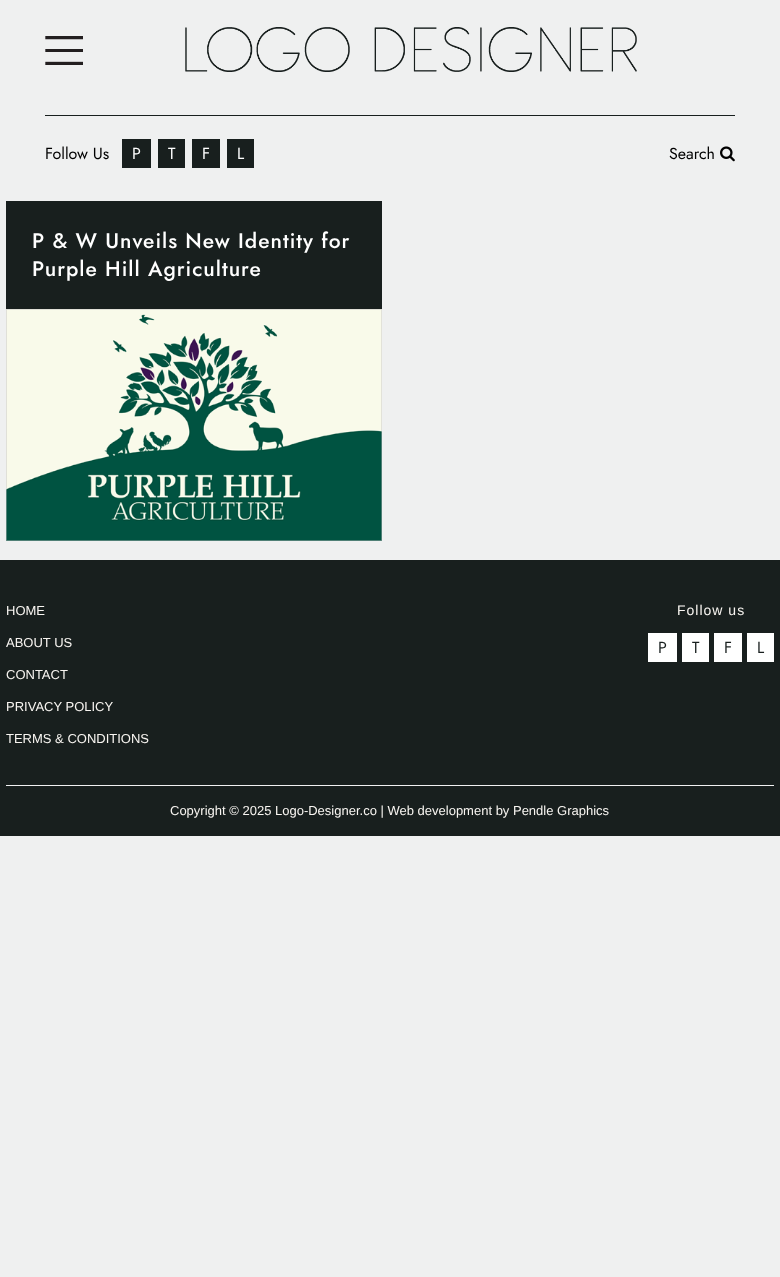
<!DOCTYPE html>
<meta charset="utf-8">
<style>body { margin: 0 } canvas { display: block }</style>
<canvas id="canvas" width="780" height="1277"></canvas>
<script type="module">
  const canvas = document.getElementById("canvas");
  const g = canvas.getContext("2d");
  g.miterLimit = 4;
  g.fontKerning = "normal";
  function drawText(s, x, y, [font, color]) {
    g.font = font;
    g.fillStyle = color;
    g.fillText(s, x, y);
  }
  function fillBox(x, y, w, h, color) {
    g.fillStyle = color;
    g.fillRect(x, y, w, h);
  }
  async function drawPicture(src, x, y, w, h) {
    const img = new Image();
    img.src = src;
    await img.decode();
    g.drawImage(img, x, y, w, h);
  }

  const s1 = ["16px Jost", "#000000"];
  const s2 = ["16px Jost", "#FFFFFF"];
  const s3 = ["500 21px Jost", "#FFFFFF"];
  const s4 = ["13px Liberation Sans", "#F8F5F1"];
  const s5 = ["14px Liberation Sans", "#F8F5F1"];
  const s6 = ["16px Jost", "#181F1E"];

  fillBox(0, 0, 780, 1277, "#EFF0F0");
  await drawPicture("pic1.png", 45, 36, 38, 29);
  fillBox(45, 115, 690, 1, "#181F1E");
  await drawPicture("pic2.png", 185, 27, 452, 45);
  drawText("Follow Us", 45, 159, s1);
  fillBox(122, 139, 29, 29, "#181F1E");
  drawText("P", 132, 159, s2);
  fillBox(158, 139, 27, 29, "#181F1E");
  drawText("T", 168, 159, s2);
  fillBox(192, 139, 28, 29, "#181F1E");
  drawText("F", 202, 159, s2);
  fillBox(227, 139, 27, 29, "#181F1E");
  drawText("L", 237, 159, s2);
  drawText("Search", 669, 159, s1);
  await drawPicture("pic3.png", 720, 146, 15, 16);
  fillBox(6, 201, 376, 108, "#181F1E");
  g.letterSpacing = "1px";
  drawText("P & W Unveils New Identity for", 32, 248, s3);
  drawText("Purple Hill Agriculture", 32, 276, s3);
  await drawPicture("pic4.png", 6, 309, 376, 232);
  fillBox(0, 560, 780, 276, "#181F1E");
  g.letterSpacing = "0px";
  drawText("HOME", 6, 615, s4);
  drawText("ABOUT US", 6, 647, s4);
  drawText("CONTACT", 6, 679, s4);
  drawText("PRIVACY POLICY", 6, 711, s4);
  drawText("TERMS & CONDITIONS", 6, 743, s4);
  g.letterSpacing = "1px";
  drawText("Follow us", 677, 615, s5);
  fillBox(648, 633, 29, 29, "#FFFFFF");
  g.letterSpacing = "0px";
  drawText("P", 658, 653, s6);
  fillBox(682, 633, 27, 29, "#FFFFFF");
  drawText("T", 692, 653, s6);
  fillBox(714, 633, 28, 29, "#FFFFFF");
  drawText("F", 724, 653, s6);
  fillBox(747, 633, 27, 29, "#FFFFFF");
  drawText("L", 757, 653, s6);
  fillBox(6, 785, 768, 1, "#F1F1F2");
  drawText("Copyright © 2025 Logo-Designer.co | Web development by Pendle Graphics", 170, 815, s4);
</script>
